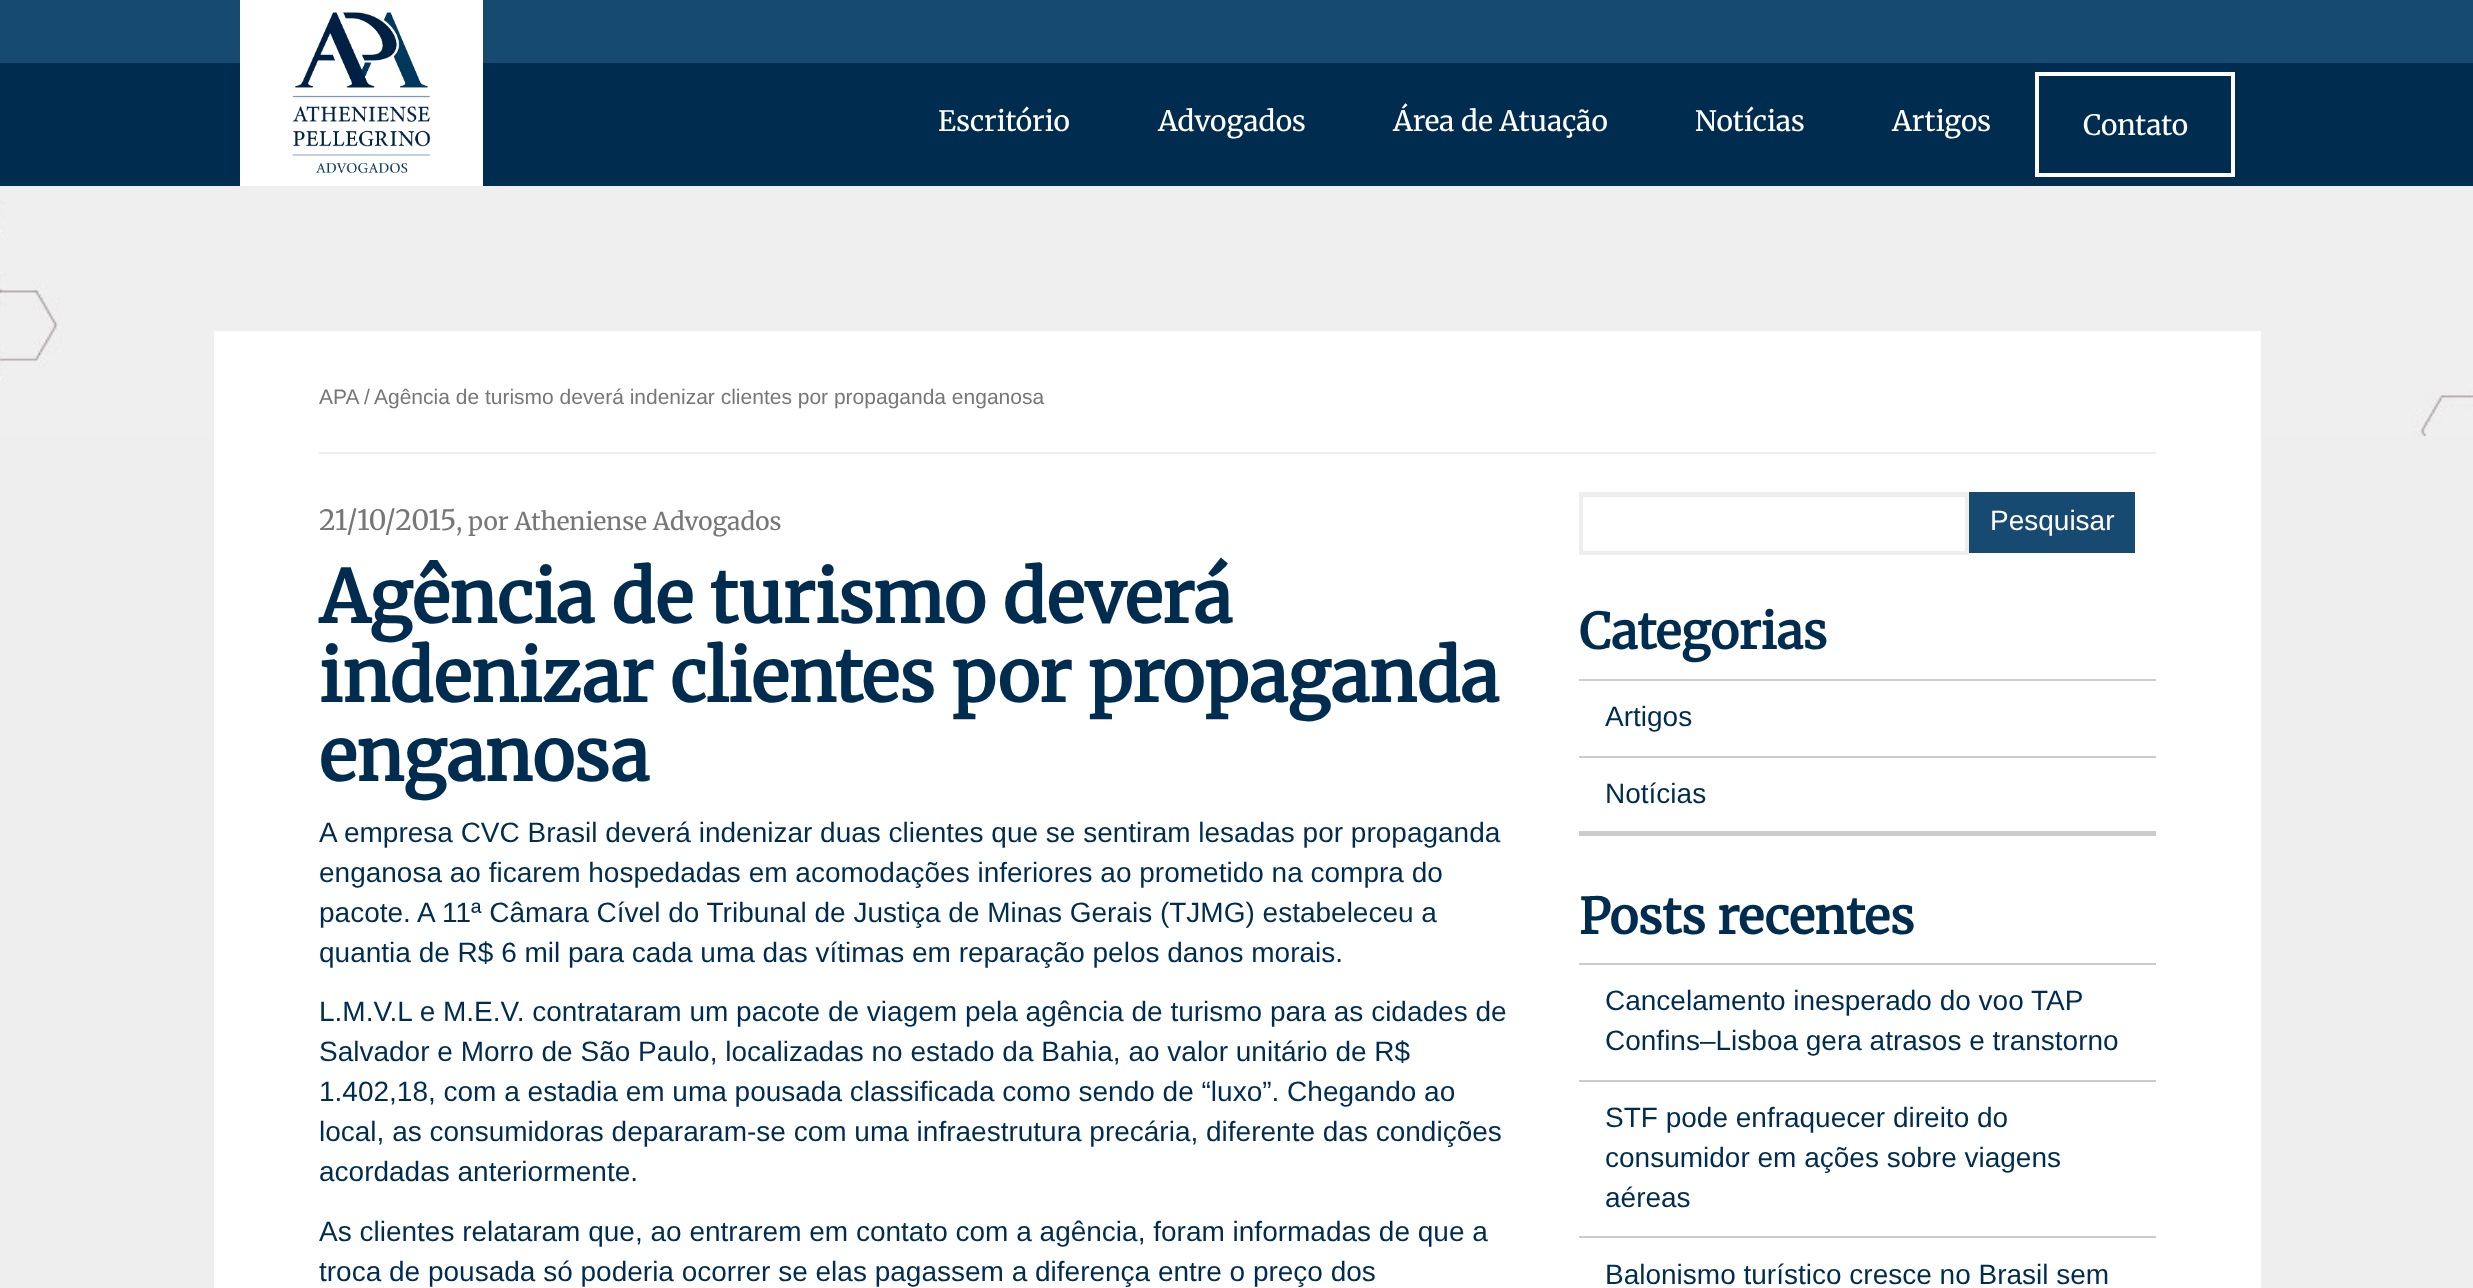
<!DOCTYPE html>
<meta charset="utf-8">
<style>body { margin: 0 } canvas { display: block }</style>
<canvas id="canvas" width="2473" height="1288"></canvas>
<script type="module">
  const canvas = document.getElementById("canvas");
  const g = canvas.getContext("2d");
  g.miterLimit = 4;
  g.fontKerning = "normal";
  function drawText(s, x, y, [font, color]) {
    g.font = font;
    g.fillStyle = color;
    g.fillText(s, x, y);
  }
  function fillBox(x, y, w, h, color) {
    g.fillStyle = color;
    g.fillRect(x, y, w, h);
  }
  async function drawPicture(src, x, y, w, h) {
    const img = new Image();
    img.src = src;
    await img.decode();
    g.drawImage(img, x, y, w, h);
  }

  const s1 = ["300 28px Merriweather", "#FFFFFF"];
  const s2 = ["21px Liberation Sans", "#777777"];
  const s3 = ["300 28px Merriweather", "#777777"];
  const s4 = ["300 24.4px Merriweather", "#777777"];
  const s5 = ["bold 71.75px Merriweather", "#002C50"];
  const s6 = ["28px Liberation Sans", "#002C50"];
  const s7 = ["28px Liberation Sans", "#FFFFFF"];
  const s8 = ["bold 49px Merriweather", "#002C50"];

  fillBox(0, 0, 2473, 1288, "#EEEEEE");
  fillBox(0, 63, 2473, 123, "#002C50");
  fillBox(0, 0, 2473, 63, "#164A70");
  fillBox(240, 0, 243, 186, "#FFFFFF");
  await drawPicture("pic1.png", 292, 12, 139, 161);
  drawText("Escritório", 938, 131, s1);
  drawText("Advogados", 1158, 131, s1);
  drawText("Área de Atuação", 1393, 131, s1);
  drawText("Notícias", 1695, 131, s1);
  drawText("Artigos", 1892, 131, s1);
  g.strokeStyle = "#FFFFFF";
  g.lineWidth = 4;
  g.strokeRect(2037, 74, 196, 101);
  drawText("Contato", 2083, 135, s1);
  await drawPicture("pic2.png", 0, 186, 2473, 250);
  fillBox(214, 331, 2047, 957, "#FFFFFF");
  drawText("APA", 319, 404, s2);
  drawText("/", 364, 404, s2);
  drawText("Agência de turismo deverá indenizar clientes por propaganda enganosa", 374, 404, s2);
  fillBox(319, 452, 1837, 2, "#EEEEEE");
  drawText("21/10/2015", 319, 530, s3);
  drawText(", por Atheniense Advogados", 456, 530, s4);
  drawText("Agência de turismo deverá", 319, 623, s5);
  drawText("indenizar clientes por propaganda", 319, 702, s5);
  drawText("enganosa", 319, 781, s5);
  drawText("A empresa CVC Brasil deverá indenizar duas clientes que se sentiram lesadas por propaganda", 319, 842, s6);
  drawText("enganosa ao ficarem hospedadas em acomodações inferiores ao prometido na compra do", 319, 882, s6);
  drawText("pacote. A 11ª Câmara Cível do Tribunal de Justiça de Minas Gerais (TJMG) estabeleceu a", 319, 922, s6);
  drawText("quantia de R$ 6 mil para cada uma das vítimas em reparação pelos danos morais.", 319, 962, s6);
  drawText("L.M.V.L e M.E.V. contrataram um pacote de viagem pela agência de turismo para as cidades de", 319, 1021, s6);
  drawText("Salvador e Morro de São Paulo, localizadas no estado da Bahia, ao valor unitário de R$", 319, 1061, s6);
  drawText("1.402,18, com a estadia em uma pousada classificada como sendo de “luxo”. Chegando ao", 319, 1101, s6);
  drawText("local, as consumidoras depararam-se com uma infraestrutura precária, diferente das condições", 319, 1141, s6);
  drawText("acordadas anteriormente.", 319, 1181, s6);
  drawText("As clientes relataram que, ao entrarem em contato com a agência, foram informadas de que a", 319, 1241, s6);
  drawText("troca de pousada só poderia ocorrer se elas pagassem a diferença entre o preço dos", 319, 1281, s6);
  fillBox(1582, 496, 383, 1, "#ECECEC");
  g.strokeStyle = "#EEEEEE";
  g.strokeRect(1581, 494, 386, 59);
  fillBox(1969, 492, 166, 61, "#164A70");
  drawText("Pesquisar", 1990, 530, s7);
  fillBox(1579, 831, 577, 5, "#CCCCCC");
  drawText("Categorias", 1579, 649, s8);
  fillBox(1579, 679, 577, 2, "#CCCCCC");
  drawText("Artigos", 1605, 726, s6);
  fillBox(1579, 756, 577, 2, "#CCCCCC");
  drawText("Notícias", 1605, 803, s6);
  drawText("Posts recentes", 1579, 934, s8);
  fillBox(1579, 963, 577, 2, "#CCCCCC");
  drawText("Cancelamento inesperado do voo TAP", 1605, 1010, s6);
  drawText("Confins–Lisboa gera atrasos e transtorno", 1605, 1050, s6);
  fillBox(1579, 1080, 577, 2, "#CCCCCC");
  drawText("STF pode enfraquecer direito do", 1605, 1127, s6);
  drawText("consumidor em ações sobre viagens", 1605, 1167, s6);
  drawText("aéreas", 1605, 1207, s6);
  fillBox(1579, 1236, 577, 2, "#CCCCCC");
  drawText("Balonismo turístico cresce no Brasil sem", 1605, 1284, s6);
</script>
